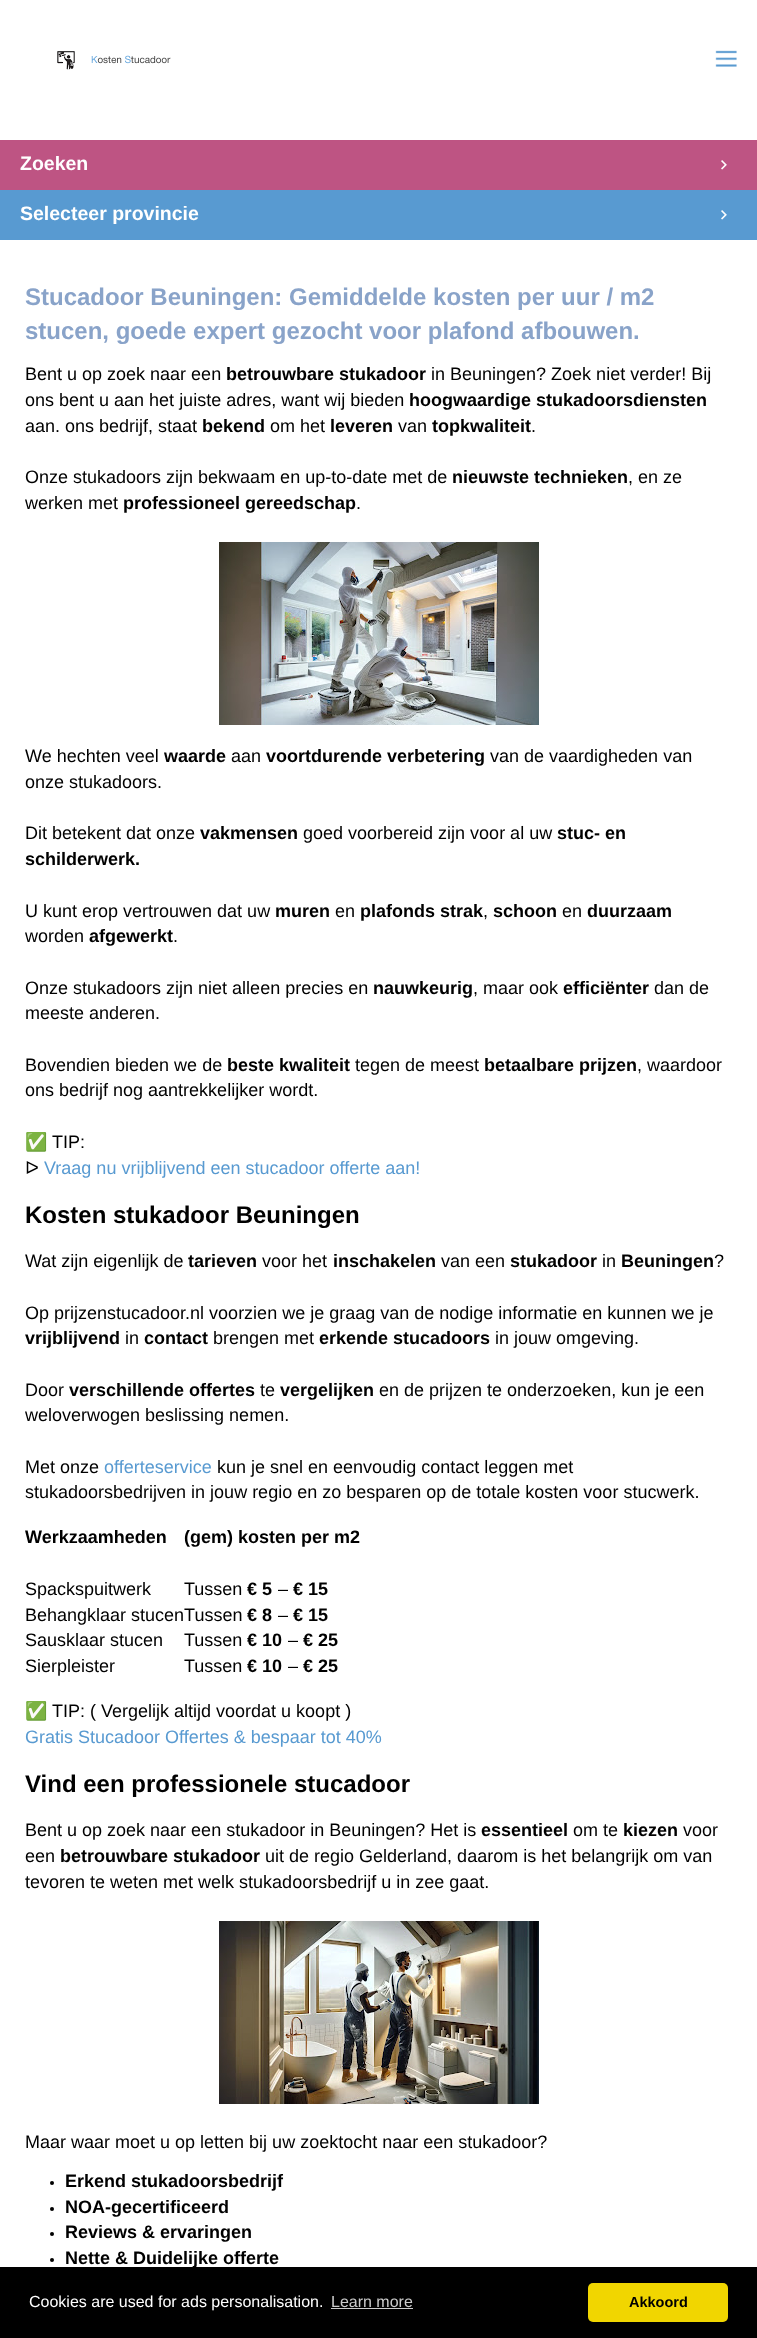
<!DOCTYPE html>
<meta charset="utf-8">
<style>body { margin: 0 } canvas { display: block }</style>
<canvas id="canvas" width="757" height="2338"></canvas>
<script type="module">
  const canvas = document.getElementById("canvas");
  const g = canvas.getContext("2d");
  g.miterLimit = 4;
  g.fontKerning = "normal";
  function drawText(s, x, y, [font, color]) {
    g.font = font;
    g.fillStyle = color;
    g.fillText(s, x, y);
  }
  function fillBox(x, y, w, h, color) {
    g.fillStyle = color;
    g.fillRect(x, y, w, h);
  }
  function fillRounded(x, y, w, h, r, color) {
    g.fillStyle = color;
    g.beginPath();
    g.roundRect(x, y, w, h, r);
    g.fill();
  }
  async function drawPicture(src, x, y, w, h) {
    const img = new Image();
    img.src = src;
    await img.decode();
    g.drawImage(img, x, y, w, h);
  }

  const s1 = ["bold 19.5px Liberation Sans", "#FFFFFF"];
  const s2 = ["bold 24px Liberation Sans", "#89A3C9"];
  const s3 = ["18px Liberation Sans", "#000000"];
  const s4 = ["bold 18px Liberation Sans", "#000000"];
  const s5 = ["18px Noto Color Emoji", "#000000"];
  const s6 = ["18px DejaVu Sans", "#000000"];
  const s7 = ["18px Liberation Sans", "#589AD1"];
  const s8 = ["bold 24px Liberation Sans", "#000000"];
  const s9 = ["16px Liberation Sans", "#FFFFFF"];
  const s10 = ["16px Liberation Sans", "#CCCCCC"];
  const s11 = ["bold 14.5px Liberation Sans", "#000000"];

  fillBox(0, 0, 757, 2338, "#FFFFFF");
  await drawPicture("pic1.png", 57, 51, 114, 19);
  await drawPicture("pic2.png", 715, 50, 22, 17);
  fillBox(0, 140, 757, 50, "#BE5483");
  await drawPicture("pic3.png", 721, 160, 6, 10);
  drawText("Zoeken", 20, 170, s1);
  fillBox(0, 190, 757, 50, "#589AD1");
  await drawPicture("pic4.png", 721, 210, 6, 10);
  drawText("Selecteer provincie", 20, 220, s1);
  drawText("Stucadoor Beuningen: Gemiddelde kosten per uur / m2", 25, 305, s2);
  drawText("stucen, goede expert gezocht voor plafond afbouwen.", 25, 339, s2);
  drawText("Bent u op zoek naar een", 25, 380, s3);
  drawText("betrouwbare stukadoor", 226, 380, s4);
  drawText("in Beuningen? Zoek niet verder! Bij", 431, 380, s3);
  drawText("ons bent u aan het juiste adres, want wij bieden", 25, 406, s3);
  drawText("hoogwaardige stukadoorsdiensten", 409, 406, s4);
  drawText("aan. ons bedrijf, staat", 25, 432, s3);
  drawText("bekend", 202, 432, s4);
  drawText("om het", 270, 432, s3);
  drawText("leveren", 330, 432, s4);
  drawText("van", 398, 432, s3);
  drawText("topkwaliteit", 432, 432, s4);
  drawText(".", 531, 432, s3);
  drawText("Onze stukadoors zijn bekwaam en up-to-date met de", 25, 483, s3);
  drawText("nieuwste technieken", 452, 483, s4);
  drawText(", en ze", 628, 483, s3);
  drawText("werken met", 25, 509, s3);
  drawText("professioneel gereedschap", 123, 509, s4);
  drawText(".", 356, 509, s3);
  await drawPicture("pic5.png", 219, 542, 320, 183);
  drawText("We hechten veel", 25, 762, s3);
  drawText("waarde", 164, 762, s4);
  drawText("aan", 231, 762, s3);
  drawText("voortdurende verbetering", 266, 762, s4);
  drawText("van de vaardigheden van", 490, 762, s3);
  drawText("onze stukadoors.", 25, 788, s3);
  drawText("Dit betekent dat onze", 25, 839, s3);
  drawText("vakmensen", 200, 839, s4);
  drawText("goed voorbereid zijn voor al uw", 303, 839, s3);
  drawText("stuc- en", 557, 839, s4);
  drawText("schilderwerk.", 25, 865, s4);
  drawText("U kunt erop vertrouwen dat uw", 25, 917, s3);
  drawText("muren", 275, 917, s4);
  drawText("en", 335, 917, s3);
  drawText("plafonds strak", 360, 917, s4);
  drawText(",", 483, 917, s3);
  drawText("schoon", 493, 917, s4);
  drawText("en", 562, 917, s3);
  drawText("duurzaam", 587, 917, s4);
  drawText("worden", 25, 942, s3);
  drawText("afgewerkt", 89, 942, s4);
  drawText(".", 173, 942, s3);
  drawText("Onze stukadoors zijn niet alleen precies en", 25, 994, s3);
  drawText("nauwkeurig", 373, 994, s4);
  drawText(", maar ook", 473, 994, s3);
  drawText("efficiënter", 563, 994, s4);
  drawText("dan de", 654, 994, s3);
  drawText("meeste anderen.", 25, 1019, s3);
  drawText("Bovendien bieden we de", 25, 1071, s3);
  drawText("beste kwaliteit", 227, 1071, s4);
  drawText("tegen de meest", 355, 1071, s3);
  drawText("betaalbare prijzen", 484, 1071, s4);
  drawText(", waardoor", 637, 1071, s3);
  drawText("ons bedrijf nog aantrekkelijker wordt.", 25, 1096, s3);
  drawText("✅", 25, 1148, s5);
  drawText("TIP:", 52, 1148, s3);
  drawText("ᐅ", 25, 1174, s6);
  drawText("Vraag nu vrijblijvend een stucadoor offerte aan!", 44, 1174, s7);
  drawText("Kosten stukadoor Beuningen", 25, 1223, s8);
  drawText("Wat zijn eigenlijk de", 25, 1267, s3);
  drawText("tarieven", 188, 1267, s4);
  drawText("voor het", 262, 1267, s3);
  drawText("inschakelen", 333, 1267, s4);
  drawText("van een", 441, 1267, s3);
  drawText("stukadoor", 510, 1267, s4);
  drawText("in", 602, 1267, s3);
  drawText("Beuningen", 621, 1267, s4);
  drawText("?", 714, 1267, s3);
  drawText("Op prijzenstucadoor.nl voorzien we je graag van de nodige informatie en kunnen we je", 25, 1319, s3);
  drawText("vrijblijvend", 25, 1344, s4);
  drawText("in", 125, 1344, s3);
  drawText("contact", 144, 1344, s4);
  drawText("brengen met", 213, 1344, s3);
  drawText("erkende stucadoors", 319, 1344, s4);
  drawText("in jouw omgeving.", 495, 1344, s3);
  drawText("Door", 25, 1396, s3);
  drawText("verschillende offertes", 69, 1396, s4);
  drawText("te", 260, 1396, s3);
  drawText("vergelijken", 280, 1396, s4);
  drawText("en de prijzen te onderzoeken, kun je een", 379, 1396, s3);
  drawText("weloverwogen beslissing nemen.", 25, 1421, s3);
  drawText("Met onze", 25, 1473, s3);
  drawText("offerteservice", 104, 1473, s7);
  drawText("kun je snel en eenvoudig contact leggen met", 217, 1473, s3);
  drawText("stukadoorsbedrijven in jouw regio en zo besparen op de totale kosten voor stucwerk.", 25, 1498, s3);
  drawText("Werkzaamheden", 25, 1543, s4);
  drawText("(gem) kosten per m2", 184, 1543, s4);
  drawText("Spackspuitwerk", 25, 1595, s3);
  drawText("Tussen", 184, 1595, s3);
  drawText("€ 5", 247, 1595, s4);
  drawText("–", 278, 1595, s3);
  drawText("€ 15", 293, 1595, s4);
  drawText("Behangklaar stucenTussen", 25, 1621, s3);
  drawText("€ 8", 247, 1621, s4);
  drawText("–", 278, 1621, s3);
  drawText("€ 15", 293, 1621, s4);
  drawText("Sausklaar stucen", 25, 1646, s3);
  drawText("Tussen", 184, 1646, s3);
  drawText("€ 10", 247, 1646, s4);
  drawText("–", 288, 1646, s3);
  drawText("€ 25", 303, 1646, s4);
  drawText("Sierpleister", 25, 1672, s3);
  drawText("Tussen", 184, 1672, s3);
  drawText("€ 10", 247, 1672, s4);
  drawText("–", 288, 1672, s3);
  drawText("€ 25", 303, 1672, s4);
  drawText("✅", 25, 1717, s5);
  drawText("TIP: ( Vergelijk altijd voordat u koopt )", 52, 1717, s3);
  drawText("Gratis Stucadoor Offertes & bespaar tot 40%", 25, 1743, s7);
  drawText("Vind een professionele stucadoor", 25, 1792, s8);
  drawText("Bent u op zoek naar een stukadoor in Beuningen? Het is", 25, 1836, s3);
  drawText("essentieel", 481, 1836, s4);
  drawText("om te", 573, 1836, s3);
  drawText("kiezen", 623, 1836, s4);
  drawText("voor", 683, 1836, s3);
  drawText("een", 25, 1862, s3);
  drawText("betrouwbare stukadoor", 60, 1862, s4);
  drawText("uit de regio Gelderland, daarom is het belangrijk om van", 265, 1862, s3);
  drawText("tevoren te weten met welk stukadoorsbedrijf u in zee gaat.", 25, 1888, s3);
  await drawPicture("pic6.png", 219, 1921, 320, 183);
  drawText("Maar waar moet u op letten bij uw zoektocht naar een stukadoor?", 25, 2148, s3);
  g.beginPath();
  g.arc(52, 2183, 2, 0, Math.PI * 2);
  g.fill();
  drawText("Erkend stukadoorsbedrijf", 65, 2187, s4);
  g.beginPath();
  g.arc(52, 2209, 2, 0, Math.PI * 2);
  g.fill();
  drawText("NOA-gecertificeerd", 65, 2213, s4);
  g.beginPath();
  g.arc(52, 2234, 2, 0, Math.PI * 2);
  g.fill();
  drawText("Reviews & ervaringen", 65, 2238, s4);
  g.beginPath();
  g.arc(52, 2260, 2, 0, Math.PI * 2);
  g.fill();
  drawText("Nette & Duidelijke offerte", 65, 2264, s4);
  fillBox(0, 2267, 757, 71, "#000000");
  drawText("Cookies are used for ads personalisation.", 29, 2307, s9);
  drawText("Learn more", 331, 2307, s10);
  fillBox(331, 2308, 82, 1, "#CCCCCC");
  fillRounded(588, 2283, 140, 39, 5, "#F1D600");
  drawText("Akkoord", 629, 2307, s11);
</script>
